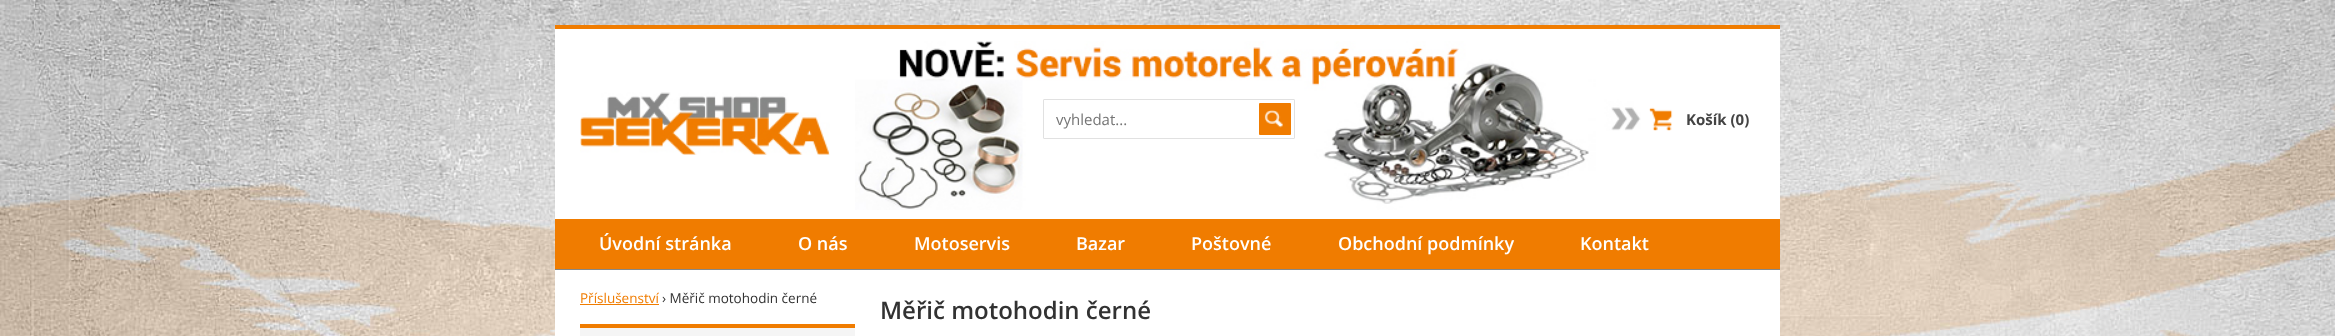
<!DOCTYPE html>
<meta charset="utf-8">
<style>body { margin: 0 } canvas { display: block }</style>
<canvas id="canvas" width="2335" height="336"></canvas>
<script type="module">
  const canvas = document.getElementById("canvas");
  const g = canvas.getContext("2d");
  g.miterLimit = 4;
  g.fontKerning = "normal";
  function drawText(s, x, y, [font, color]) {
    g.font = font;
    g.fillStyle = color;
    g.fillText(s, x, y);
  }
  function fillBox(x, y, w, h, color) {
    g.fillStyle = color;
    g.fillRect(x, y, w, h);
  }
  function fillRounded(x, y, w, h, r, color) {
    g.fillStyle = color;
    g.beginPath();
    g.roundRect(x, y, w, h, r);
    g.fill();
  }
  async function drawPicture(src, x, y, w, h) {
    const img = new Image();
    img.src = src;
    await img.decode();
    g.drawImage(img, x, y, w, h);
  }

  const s1 = ["15px Open Sans", "#757575"];
  const s2 = ["bold 15px Open Sans", "#444444"];
  const s3 = ["600 18px Open Sans", "#FFFFFF"];
  const s4 = ["13.5px Open Sans", "#F07C00"];
  const s5 = ["13.5px Open Sans", "#323232"];
  const s6 = ["600 24px Open Sans", "#323232"];

  fillBox(0, 0, 2335, 336, "#FFFFFF");
  await drawPicture("pic1.png", 0, 0, 2335, 336);
  fillBox(555, 29, 1225, 307, "#FFFFFF");
  fillBox(555, 25, 1225, 4, "#F07C00");
  await drawPicture("pic2.png", 855, 41, 786, 169);
  await drawPicture("pic3.png", 580, 92, 250, 63);
  g.beginPath();
  g.roundRect(1043.5, 99.5, 251, 39, 0.5);
  g.strokeStyle = "#E1E1E1";
  g.stroke();
  drawText("vyhledat...", 1056, 125, s1);
  fillRounded(1259, 103, 32, 32, 1, "#F07C00");
  await drawPicture("pic4.png", 1264, 110, 19, 18);
  await drawPicture("pic5.png", 1649, 107, 24, 24);
  drawText("Košík (0)", 1686, 125, s2);
  fillBox(555, 219, 1225, 50, "#F07C00");
  fillBox(555, 269, 1225, 1, "#868786");
  drawText("Úvodní stránka", 599, 250, s3);
  drawText("O nás", 798, 250, s3);
  drawText("Motoservis", 914, 250, s3);
  drawText("Bazar", 1076, 250, s3);
  drawText("Poštovné", 1191, 250, s3);
  drawText("Obchodní podmínky", 1338, 250, s3);
  drawText("Kontakt", 1580, 250, s3);
  drawText("Příslušenství", 580, 303, s4);
  fillBox(580, 304, 79, 1, "#F07C00");
  drawText("› Měřič motohodin černé", 662, 303, s5);
  fillBox(580, 328, 275, 8, "#F5F5F5");
  fillBox(580, 324, 275, 4, "#F07C00");
  drawText("Měřič motohodin černé", 880, 319, s6);
</script>
